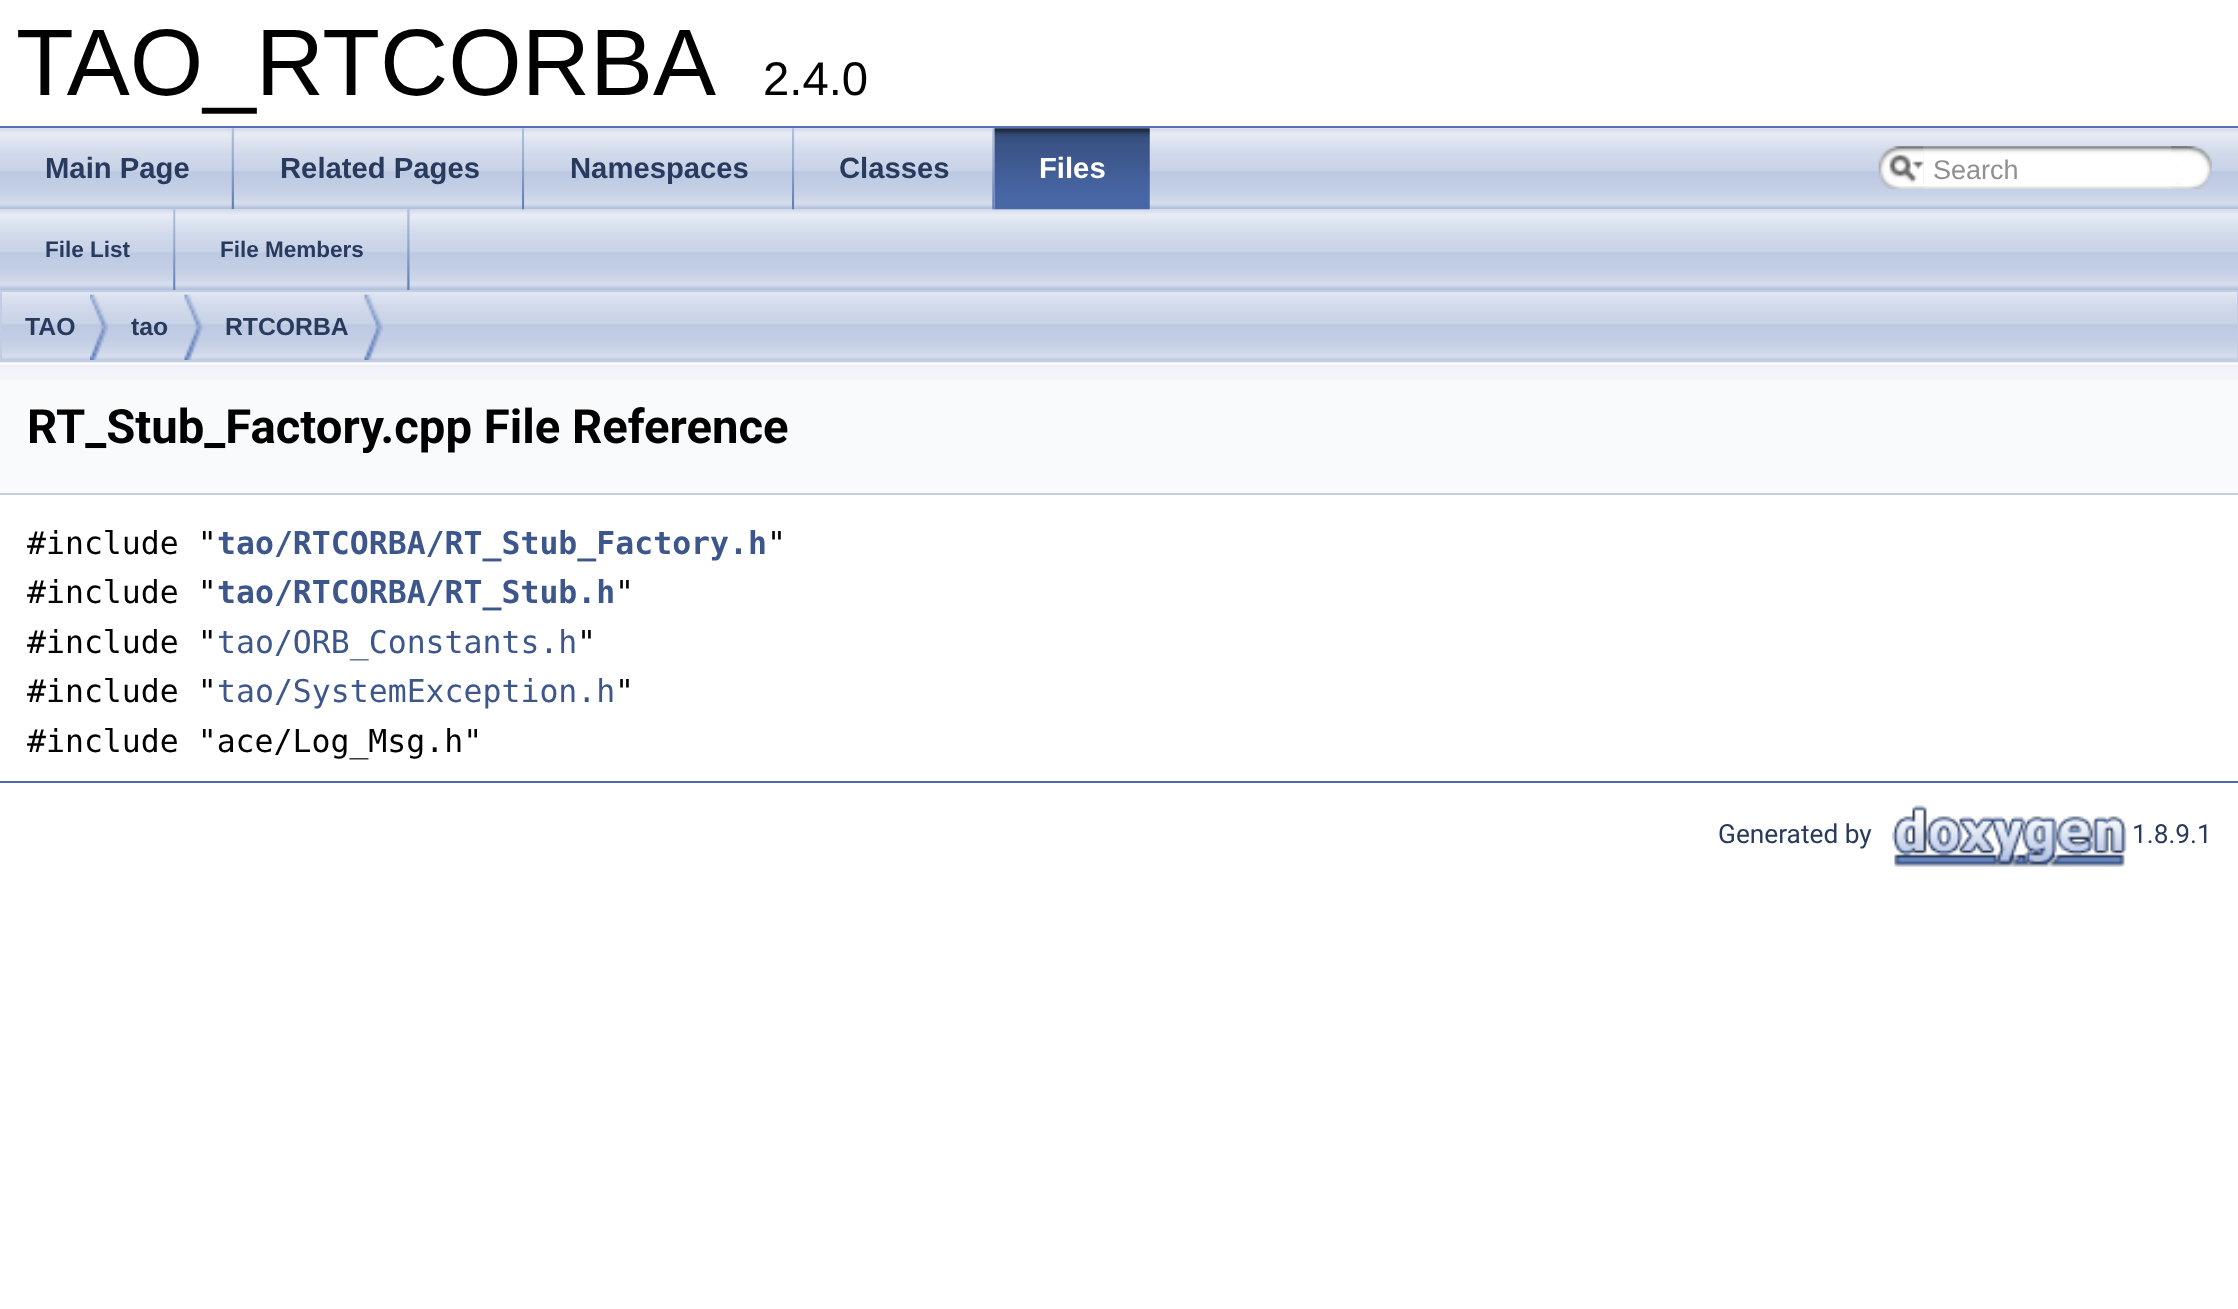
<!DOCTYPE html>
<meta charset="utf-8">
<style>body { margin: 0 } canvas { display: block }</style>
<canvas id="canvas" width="2238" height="1309"></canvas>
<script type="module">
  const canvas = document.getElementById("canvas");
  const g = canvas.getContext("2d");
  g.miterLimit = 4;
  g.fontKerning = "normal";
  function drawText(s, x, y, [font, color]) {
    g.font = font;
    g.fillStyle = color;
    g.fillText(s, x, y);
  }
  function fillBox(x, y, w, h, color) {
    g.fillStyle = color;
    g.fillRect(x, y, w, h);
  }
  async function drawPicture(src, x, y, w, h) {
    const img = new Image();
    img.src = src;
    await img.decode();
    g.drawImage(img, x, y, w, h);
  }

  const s1 = ["94.5px Liberation Sans", "#000000"];
  const s2 = ["47.25px Liberation Sans", "#000000"];
  const s3 = ["bold 29.25px Liberation Sans", "#283A5D"];
  const s4 = ["bold 29.25px Liberation Sans", "#FFFFFF"];
  const s5 = ["27px Liberation Sans", "#909090"];
  const s6 = ["bold 22.5px Liberation Sans", "#283A5D"];
  const s7 = ["bold 24.75px Liberation Sans", "#283A5D"];
  const s8 = ["bold 47.25px Roboto", "#000000"];
  const s9 = ["31.5px DejaVu Sans Mono", "#000000"];
  const s10 = ["bold 31.5px DejaVu Sans Mono", "#3D578C"];
  const s11 = ["31.5px DejaVu Sans Mono", "#3D578C"];
  const s12 = ["26.25px Roboto", "#283A5D"];

  fillBox(0, 0, 2238, 1309, "#FFFFFF");
  fillBox(0, 126, 2238, 2, "#5373B4");
  drawText("TAO_RTCORBA", 16, 95, s1);
  drawText("2.4.0", 763, 95, s2);
  await drawPicture("pic1.png", 0, 128, 2238, 82);
  await drawPicture("pic15.png", 0, 209, 2238, 81);
  await drawPicture("pic2.png", 0, 128, 234, 82);
  await drawPicture("pic3.png", 231, 128, 3, 82);
  drawText("Main Page", 45, 178, s3);
  await drawPicture("pic4.png", 234, 128, 290, 82);
  await drawPicture("pic5.png", 522, 128, 3, 82);
  drawText("Related Pages", 280, 178, s3);
  await drawPicture("pic6.png", 524, 128, 270, 82);
  await drawPicture("pic5.png", 792, 128, 3, 82);
  drawText("Namespaces", 570, 178, s3);
  await drawPicture("pic7.png", 794, 128, 201, 82);
  await drawPicture("pic8.png", 992, 128, 3, 82);
  drawText("Classes", 839, 178, s3);
  await drawPicture("pic9.png", 994, 128, 156, 82);
  await drawPicture("pic10.png", 994, 128, 156, 82);
  drawText("Files", 1039, 178, s4);
  await drawPicture("pic11.png", 1878, 146, 46, 43);
  await drawPicture("pic12.png", 1889, 154, 35, 29);
  await drawPicture("pic13.png", 1923, 146, 264, 43);
  drawText("Search", 1933, 179, s5);
  await drawPicture("pic14.png", 2171, 146, 41, 43);
  await drawPicture("pic16.png", 173, 209, 3, 81);
  drawText("File List", 45, 257, s6);
  await drawPicture("pic17.png", 175, 209, 235, 81);
  await drawPicture("pic18.png", 407, 209, 3, 81);
  drawText("File Members", 220, 257, s6);
  fillBox(0, 362, 2238, 131, "#F9FAFC");
  await drawPicture("pic23.png", 0, 362, 2238, 18);
  await drawPicture("pic19.png", 0, 292, 2238, 71);
  g.strokeStyle = "#C2CDE4";
  g.lineWidth = 2;
  g.strokeRect(1, 291, 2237, 70);
  await drawPicture("pic20.png", 90, 294, 18, 66);
  drawText("TAO", 25, 335, s7);
  await drawPicture("pic21.png", 184, 294, 19, 66);
  drawText("tao", 131, 335, s7);
  await drawPicture("pic22.png", 364, 294, 19, 66);
  drawText("RTCORBA", 225, 335, s7);
  fillBox(0, 493, 2238, 2, "#C4CFE5");
  drawText("RT_Stub_Factory.cpp File Reference", 27, 443, s8);
  drawText("#include \"", 27, 554, s9);
  drawText("tao/RTCORBA/RT_Stub_Factory.h", 217, 554, s10);
  drawText("\"", 767, 554, s9);
  drawText("#include \"", 27, 603, s9);
  drawText("tao/RTCORBA/RT_Stub.h", 217, 603, s10);
  drawText("\"", 615, 603, s9);
  drawText("#include \"", 27, 653, s9);
  drawText("tao/ORB_Constants.h", 217, 653, s11);
  drawText("\"", 577, 653, s9);
  drawText("#include \"", 27, 702, s9);
  drawText("tao/SystemException.h", 217, 702, s11);
  drawText("\"", 615, 702, s9);
  drawText("#include \"ace/Log_Msg.h\"", 27, 752, s9);
  fillBox(0, 781, 2238, 2, "#4A6AAA");
  drawText("Generated by", 1718, 843, s12);
  await drawPicture("pic24.png", 1892, 805, 235, 62);
  drawText("1.8.9.1", 2132, 843, s12);
</script>
